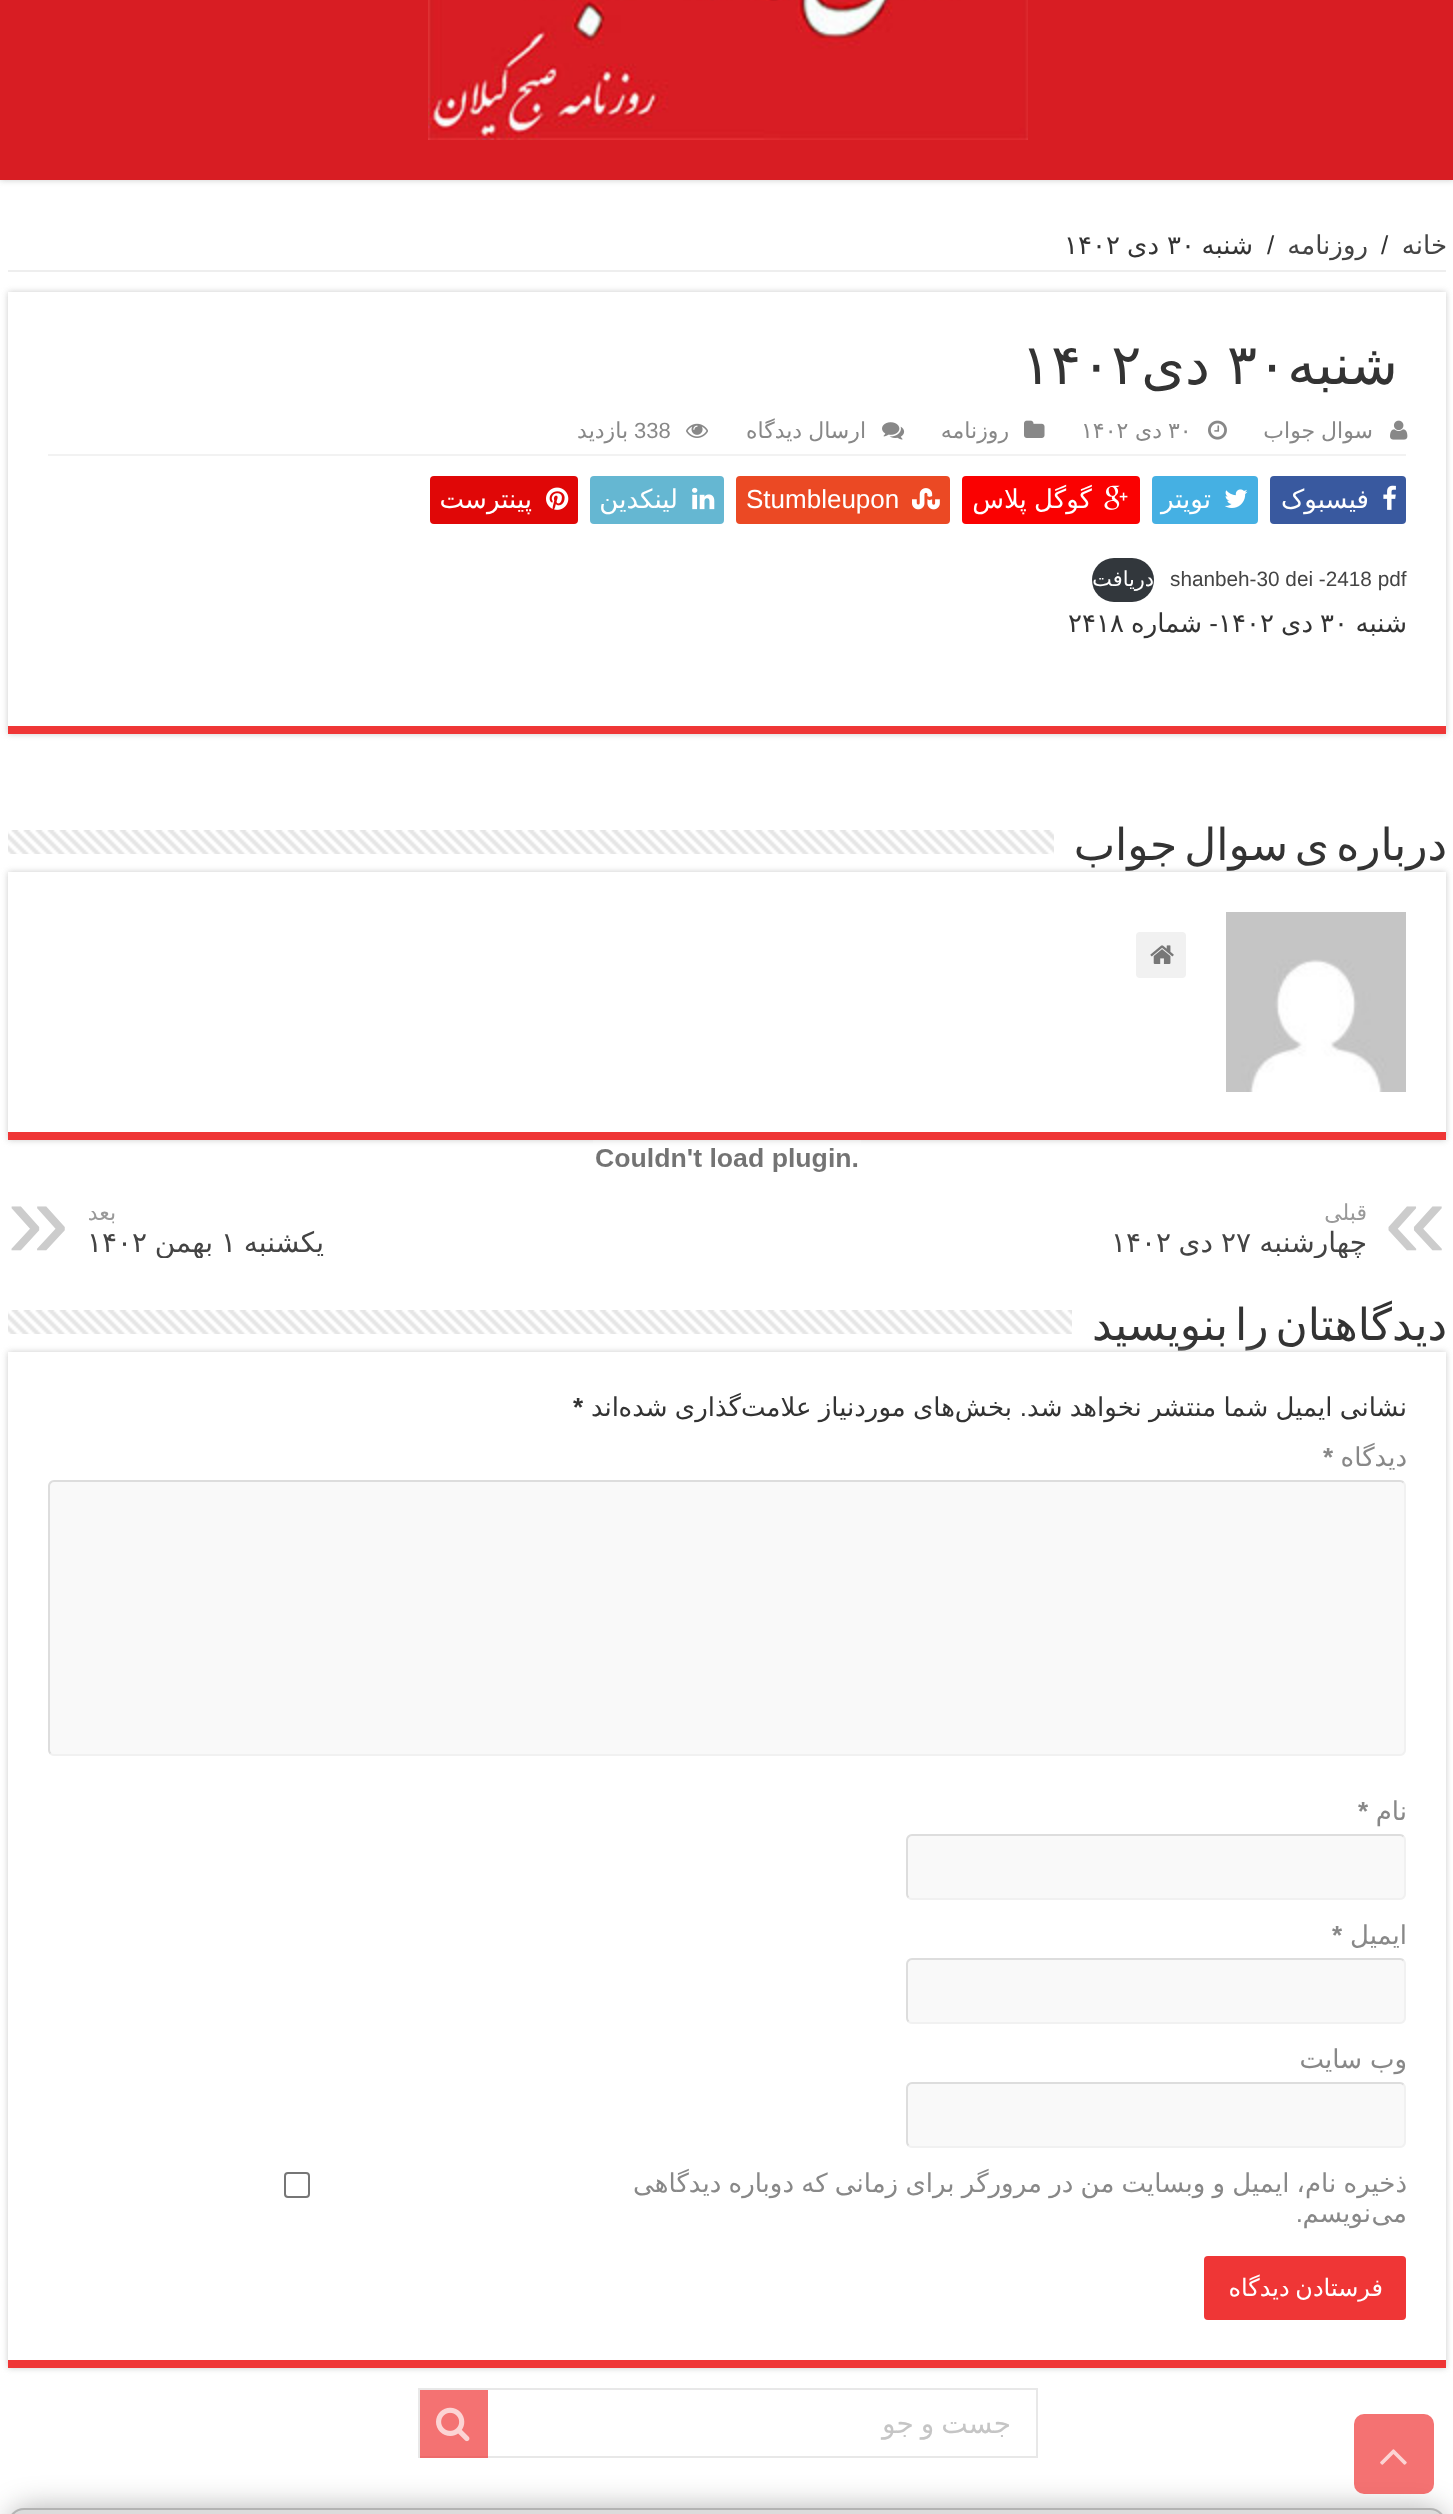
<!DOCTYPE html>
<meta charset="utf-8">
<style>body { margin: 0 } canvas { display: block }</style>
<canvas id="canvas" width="1453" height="2514"></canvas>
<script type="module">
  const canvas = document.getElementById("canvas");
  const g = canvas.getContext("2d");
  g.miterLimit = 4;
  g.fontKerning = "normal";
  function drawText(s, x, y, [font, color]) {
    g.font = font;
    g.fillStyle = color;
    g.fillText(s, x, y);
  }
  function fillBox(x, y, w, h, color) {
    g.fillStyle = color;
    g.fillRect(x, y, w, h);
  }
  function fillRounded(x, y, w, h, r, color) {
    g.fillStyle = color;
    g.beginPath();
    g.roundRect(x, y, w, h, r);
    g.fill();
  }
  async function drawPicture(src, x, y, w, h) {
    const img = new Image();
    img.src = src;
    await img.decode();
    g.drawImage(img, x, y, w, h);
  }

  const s1 = ["26px DejaVu Sans", "#444444"];
  const s2 = ["26px Liberation Sans", "#333333"];
  const s3 = ["26px DejaVu Sans", "#333333"];
  const s4 = ["56px DejaVu Sans", "#333333"];
  const s5 = ["22px DejaVu Sans", "#888888"];
  const s6 = ["22px Liberation Sans", "#888888"];
  const s7 = ["26px DejaVu Sans", "#FFFFFF"];
  const s8 = ["26px Liberation Sans", "#FFFFFF"];
  const s9 = ["20.75px Liberation Sans", "#444444"];
  const s10 = ["20.75px DejaVu Sans", "#FFFFFF"];
  const s11 = ["44px DejaVu Sans", "#333333"];
  const s12 = ["112px Liberation Sans", "#CCCCCC"];
  const s13 = ["22px DejaVu Sans", "#999999"];
  const s14 = ["28px DejaVu Sans", "#444444"];
  const s15 = ["bold 26px Liberation Sans", "#333333"];
  const s16 = ["26px DejaVu Sans", "#888888"];
  const s17 = ["bold 26px Liberation Sans", "#888888"];
  const s18 = ["26px Liberation Sans", "#888888"];
  const s19 = ["24px DejaVu Sans", "#FFFFFF"];
  const s20 = ["28px DejaVu Sans", "#C5C5C5"];

  fillBox(0, 0, 1453, 2514, "#FFFFFF");
  g.fillStyle = "#CACACA";
  g.filter = "blur(3px)";
  g.beginPath();
  g.rect(0, -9, 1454, 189);
  g.fill();
  g.filter = "none";
  fillBox(0, 0, 1453, 180, "#D81D23");
  await drawPicture("pic1.png", 428, 0, 600, 140);
  fillBox(8, 270, 1438, 2, "#EEEEEE");
  g.direction = "rtl";
  drawText("خانه", 1447, 254, s1);
  g.direction = "ltr";
  drawText("/", 1381, 254, s2);
  g.direction = "rtl";
  drawText("روزنامه", 1368, 254, s1);
  g.direction = "ltr";
  drawText("/", 1267, 254, s2);
  g.direction = "rtl";
  drawText("شنبه", 1253, 254, s3);
  g.direction = "ltr";
  drawText("۳۰", 1167, 254, s3);
  g.direction = "rtl";
  drawText("دی", 1159, 254, s3);
  g.direction = "ltr";
  drawText("۱۴۰۲", 1064, 254, s3);
  g.save();
  g.beginPath();
  g.moveTo(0, 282);
  g.lineTo(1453, 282);
  g.lineTo(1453, 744);
  g.lineTo(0, 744);
  g.closePath();
  g.moveTo(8, 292);
  g.lineTo(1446, 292);
  g.lineTo(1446, 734);
  g.lineTo(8, 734);
  g.closePath();
  g.clip("evenodd");
  g.fillStyle = "#CACACA";
  g.filter = "blur(3px)";
  g.beginPath();
  g.rect(8, 292, 1438, 442);
  g.fill();
  g.filter = "none";
  g.restore();
  fillBox(8, 726, 1438, 8, "#EF3636");
  g.direction = "rtl";
  drawText("شنبه", 1398, 384, s4);
  g.direction = "ltr";
  drawText("۳۰", 1227, 384, s4);
  g.direction = "rtl";
  drawText("دی", 1210, 384, s4);
  g.direction = "ltr";
  drawText("۱۴۰۲", 1021, 384, s4);
  fillBox(48, 454, 1358, 2, "#F2F2F2");
  await drawPicture("pic2.png", 1390, 420, 18, 20);
  g.wordSpacing = "-1px";
  g.direction = "rtl";
  drawText("سوال جواب", 1373, 438, s5);
  await drawPicture("pic3.png", 1208, 420, 19, 20);
  g.wordSpacing = "0px";
  g.direction = "ltr";
  drawText("۳۰", 1168, 438, s5);
  g.direction = "rtl";
  drawText("دی", 1162, 438, s5);
  g.direction = "ltr";
  drawText("۱۴۰۲", 1081, 438, s5);
  await drawPicture("pic4.png", 1024, 420, 21, 18);
  g.direction = "rtl";
  drawText("روزنامه", 1009, 438, s5);
  await drawPicture("pic5.png", 882, 422, 23, 18);
  g.wordSpacing = "-1px";
  drawText("ارسال دیدگاه", 866, 438, s5);
  await drawPicture("pic6.png", 686, 423, 22, 15);
  g.wordSpacing = "0px";
  g.direction = "ltr";
  drawText("338", 634, 438, s6);
  g.direction = "rtl";
  drawText("بازدید", 628, 438, s5);
  fillRounded(1270, 476, 136, 48, 4, "#39599F");
  await drawPicture("pic7.png", 1383, 485, 13, 25);
  drawText("فیسبوک", 1369, 508, s7);
  fillRounded(1152, 476, 106, 48, 4, "#45B0E3");
  await drawPicture("pic8.png", 1224, 489, 24, 19);
  drawText("تویتر", 1211, 508, s7);
  fillRounded(962, 476, 178, 48, 4, "#FA0101");
  await drawPicture("pic9.png", 1104, 485, 24, 25);
  g.wordSpacing = "-1px";
  drawText("گوگل پلاس", 1092, 508, s7);
  fillRounded(736, 476, 214, 48, 4, "#EB4924");
  await drawPicture("pic10.png", 912, 488, 28, 22);
  g.wordSpacing = "0px";
  g.direction = "ltr";
  drawText("Stumbleupon", 746, 508, s8);
  fillRounded(590, 476, 134, 48, 4, "#65B7D2");
  await drawPicture("pic11.png", 692, 487, 23, 23);
  g.direction = "rtl";
  drawText("لینکدین", 678, 508, s7);
  fillRounded(430, 476, 148, 48, 4, "#E00707");
  await drawPicture("pic12.png", 546, 487, 23, 23);
  drawText("پینترست", 532, 508, s7);
  g.direction = "ltr";
  drawText("shanbeh-30 dei -2418 pdf", 1170, 586, s9);
  fillRounded(1092, 558, 62, 44, 22, "#32373C");
  g.direction = "rtl";
  drawText("دریافت", 1154, 586, s10);
  g.save();
  g.beginPath();
  g.moveTo(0, 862);
  g.lineTo(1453, 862);
  g.lineTo(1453, 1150);
  g.lineTo(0, 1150);
  g.closePath();
  g.moveTo(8, 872);
  g.lineTo(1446, 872);
  g.lineTo(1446, 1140);
  g.lineTo(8, 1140);
  g.closePath();
  g.clip("evenodd");
  g.fillStyle = "#CACACA";
  g.filter = "blur(3px)";
  g.beginPath();
  g.rect(8, 872, 1438, 268);
  g.fill();
  g.filter = "none";
  g.restore();
  await drawPicture("pic13.png", 593, 1140, 268, 32);
  drawText("شنبه", 1407, 632, s3);
  g.direction = "ltr";
  drawText("۳۰", 1320, 632, s3);
  g.direction = "rtl";
  drawText("دی", 1313, 632, s3);
  g.direction = "ltr";
  drawText("۱۴۰۲", 1218, 632, s3);
  g.direction = "rtl";
  drawText("-", 1218, 632, s2);
  drawText("شماره", 1202, 632, s3);
  g.direction = "ltr";
  drawText("۲۴۱۸", 1068, 632, s3);
  g.save();
  g.beginPath();
  g.rect(8, 814, 1438, 58);
  g.clip();
  g.wordSpacing = "-7px";
  g.direction = "rtl";
  drawText("درباره ی", 1447, 860, s11);
  g.restore();
  g.wordSpacing = "-7px";
  g.direction = "rtl";
  drawText("سوال جواب", 1288, 860, s11);
  await drawPicture("pic14.png", 8, 830, 1046, 24);
  fillBox(8, 1132, 1438, 8, "#EF3636");
  await drawPicture("pic15.png", 1226, 912, 180, 180);
  fillRounded(1136, 932, 50, 46, 4, "#F1F1F1");
  await drawPicture("pic16.png", 1150, 945, 24, 19);
  g.wordSpacing = "0px";
  g.direction = "ltr";
  drawText("«", 1384, 1258, s12);
  g.direction = "rtl";
  drawText("قبلی", 1367, 1220, s13);
  g.save();
  g.beginPath();
  g.rect(8, 1200, 1438, 58);
  g.clip();
  drawText("چهارشنبه", 1367, 1252, s14);
  g.restore();
  g.direction = "ltr";
  drawText("۲۷", 1221, 1252, s14);
  g.direction = "rtl";
  drawText("دی", 1213, 1252, s14);
  g.direction = "ltr";
  drawText("۱۴۰۲", 1111, 1252, s14);
  g.direction = "rtl";
  drawText("بعد", 116, 1220, s13);
  g.direction = "ltr";
  drawText("»", 7, 1258, s12);
  g.direction = "rtl";
  drawText("یکشنبه", 324, 1252, s14);
  g.direction = "ltr";
  drawText("۱", 221, 1252, s14);
  g.save();
  g.beginPath();
  g.rect(8, 1200, 1438, 58);
  g.clip();
  g.direction = "rtl";
  drawText("بهمن", 213, 1252, s14);
  g.restore();
  drawText("۱۴۰۲", 87, 1252, s14);
  g.wordSpacing = "-7px";
  g.direction = "rtl";
  drawText("دیدگاهتان را بنویسید", 1447, 1340, s11);
  await drawPicture("pic17.png", 8, 1310, 1064, 24);
  g.save();
  g.beginPath();
  g.moveTo(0, 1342);
  g.lineTo(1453, 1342);
  g.lineTo(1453, 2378);
  g.lineTo(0, 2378);
  g.closePath();
  g.moveTo(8, 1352);
  g.lineTo(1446, 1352);
  g.lineTo(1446, 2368);
  g.lineTo(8, 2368);
  g.closePath();
  g.clip("evenodd");
  g.fillStyle = "#CACACA";
  g.filter = "blur(3px)";
  g.beginPath();
  g.rect(8, 1352, 1438, 1016);
  g.fill();
  g.filter = "none";
  g.restore();
  fillBox(8, 2360, 1438, 8, "#EF3636");
  g.wordSpacing = "-1px";
  drawText("نشانی ایمیل شما منتشر نخواهد شد", 1407, 1416, s3);
  g.wordSpacing = "0px";
  drawText(".", 1027, 1416, s2);
  drawText("بخش", 1012, 1416, s3);
  g.wordSpacing = "-1px";
  drawText("گذاری شده", 741, 1416, s3);
  drawText("های موردنیاز علامت", 955, 1416, s3);
  g.wordSpacing = "0px";
  drawText("اند", 619, 1416, s3);
  g.direction = "ltr";
  drawText("*", 573, 1416, s15);
  g.direction = "rtl";
  drawText("دیدگاه", 1407, 1466, s16);
  g.direction = "ltr";
  drawText("*", 1323, 1466, s17);
  fillRounded(48, 1480, 1358, 276, 6, "#F9F9F9");
  g.beginPath();
  g.moveTo(1403.5, 1482.5);
  g.bezierCurveTo(1404.5, 1483.5, 1405, 1484.5, 1405, 1486);
  g.lineTo(1405, 1750);
  g.bezierCurveTo(1405, 1751.5, 1404.5, 1752.5, 1403.5, 1753.5);
  g.bezierCurveTo(1402.5, 1754.5, 1401.5, 1755, 1400, 1755);
  g.lineTo(54, 1755);
  g.bezierCurveTo(52.5, 1755, 51.5, 1754.5, 50.5, 1753.5);
  g.strokeStyle = "#F1F1F1";
  g.lineWidth = 2;
  g.stroke();
  g.beginPath();
  g.moveTo(50.5, 1753.5);
  g.bezierCurveTo(49.5, 1752.5, 49, 1751.5, 49, 1750);
  g.lineTo(49, 1486);
  g.bezierCurveTo(49, 1484.5, 49.5, 1483.5, 50.5, 1482.5);
  g.bezierCurveTo(51.5, 1481.5, 52.5, 1481, 54, 1481);
  g.lineTo(1400, 1481);
  g.bezierCurveTo(1401.5, 1481, 1402.5, 1481.5, 1403.5, 1482.5);
  g.strokeStyle = "#DDDDDD";
  g.stroke();
  g.direction = "rtl";
  drawText("نام", 1407, 1820, s16);
  g.direction = "ltr";
  drawText("*", 1358, 1820, s17);
  fillRounded(906, 1834, 500, 66, 6, "#F9F9F9");
  g.beginPath();
  g.moveTo(1403.5, 1836.5);
  g.bezierCurveTo(1404.5, 1837.5, 1405, 1838.5, 1405, 1840);
  g.lineTo(1405, 1894);
  g.bezierCurveTo(1405, 1895.5, 1404.5, 1896.5, 1403.5, 1897.5);
  g.bezierCurveTo(1402.5, 1898.5, 1401.5, 1899, 1400, 1899);
  g.lineTo(912, 1899);
  g.bezierCurveTo(910.5, 1899, 909.5, 1898.5, 908.5, 1897.5);
  g.strokeStyle = "#F1F1F1";
  g.stroke();
  g.beginPath();
  g.moveTo(908.5, 1897.5);
  g.bezierCurveTo(907.5, 1896.5, 907, 1895.5, 907, 1894);
  g.lineTo(907, 1840);
  g.bezierCurveTo(907, 1838.5, 907.5, 1837.5, 908.5, 1836.5);
  g.bezierCurveTo(909.5, 1835.5, 910.5, 1835, 912, 1835);
  g.lineTo(1400, 1835);
  g.bezierCurveTo(1401.5, 1835, 1402.5, 1835.5, 1403.5, 1836.5);
  g.strokeStyle = "#DDDDDD";
  g.stroke();
  g.direction = "rtl";
  drawText("ایمیل", 1407, 1944, s16);
  g.direction = "ltr";
  drawText("*", 1332, 1944, s17);
  fillRounded(906, 1958, 500, 66, 6, "#F9F9F9");
  g.beginPath();
  g.moveTo(1403.5, 1960.5);
  g.bezierCurveTo(1404.5, 1961.5, 1405, 1962.5, 1405, 1964);
  g.lineTo(1405, 2018);
  g.bezierCurveTo(1405, 2019.5, 1404.5, 2020.5, 1403.5, 2021.5);
  g.bezierCurveTo(1402.5, 2022.5, 1401.5, 2023, 1400, 2023);
  g.lineTo(912, 2023);
  g.bezierCurveTo(910.5, 2023, 909.5, 2022.5, 908.5, 2021.5);
  g.strokeStyle = "#F1F1F1";
  g.stroke();
  g.beginPath();
  g.moveTo(908.5, 2021.5);
  g.bezierCurveTo(907.5, 2020.5, 907, 2019.5, 907, 2018);
  g.lineTo(907, 1964);
  g.bezierCurveTo(907, 1962.5, 907.5, 1961.5, 908.5, 1960.5);
  g.bezierCurveTo(909.5, 1959.5, 910.5, 1959, 912, 1959);
  g.lineTo(1400, 1959);
  g.bezierCurveTo(1401.5, 1959, 1402.5, 1959.5, 1403.5, 1960.5);
  g.strokeStyle = "#DDDDDD";
  g.stroke();
  g.direction = "rtl";
  drawText("وب", 1407, 2068, s16);
  drawText("سایت", 1362, 2068, s16);
  fillRounded(906, 2082, 500, 66, 6, "#F9F9F9");
  g.beginPath();
  g.moveTo(1403.5, 2084.5);
  g.bezierCurveTo(1404.5, 2085.5, 1405, 2086.5, 1405, 2088);
  g.lineTo(1405, 2142);
  g.bezierCurveTo(1405, 2143.5, 1404.5, 2144.5, 1403.5, 2145.5);
  g.bezierCurveTo(1402.5, 2146.5, 1401.5, 2147, 1400, 2147);
  g.lineTo(912, 2147);
  g.bezierCurveTo(910.5, 2147, 909.5, 2146.5, 908.5, 2145.5);
  g.strokeStyle = "#F1F1F1";
  g.stroke();
  g.beginPath();
  g.moveTo(908.5, 2145.5);
  g.bezierCurveTo(907.5, 2144.5, 907, 2143.5, 907, 2142);
  g.lineTo(907, 2088);
  g.bezierCurveTo(907, 2086.5, 907.5, 2085.5, 908.5, 2084.5);
  g.bezierCurveTo(909.5, 2083.5, 910.5, 2083, 912, 2083);
  g.lineTo(1400, 2083);
  g.bezierCurveTo(1401.5, 2083, 1402.5, 2083.5, 1403.5, 2084.5);
  g.strokeStyle = "#DDDDDD";
  g.stroke();
  g.wordSpacing = "-1px";
  drawText("ذخیره نام، ایمیل و وبسایت من در مرورگر برای زمانی که دوباره دیدگاهی", 1407, 2192, s16);
  g.wordSpacing = "0px";
  drawText("می", 1407, 2222, s16);
  drawText("نویسم", 1371, 2222, s16);
  drawText(".", 1303, 2222, s18);
  g.beginPath();
  g.roundRect(285, 2173, 24, 24, 3);
  g.strokeStyle = "#767676";
  g.stroke();
  fillRounded(1204, 2256, 202, 64, 4, "#EF3636");
  g.wordSpacing = "-2px";
  drawText("فرستادن دیدگاه", 1383, 2296, s19);
  g.strokeStyle = "#E8E8E8";
  g.strokeRect(419, 2389, 618, 68);
  g.save();
  g.beginPath();
  g.rect(444, 2408, 568, 34);
  g.clip();
  drawText("جست و جو", 1011, 2433, s20);
  g.restore();
  fillBox(420, 2390, 68, 68, "rgba(239, 54, 54, 0.7)");
  await drawPicture("pic18.png", 436, 2407, 34, 35);
  g.fillStyle = "rgba(0, 0, 0, 0.31)";
  g.filter = "blur(15px)";
  g.beginPath();
  g.roundRect(8, 2508, 1438, 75, 24);
  g.fill();
  g.filter = "none";
  fillRounded(8, 2508, 1438, 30, 24, "#DBDBDB");
  g.beginPath();
  g.roundRect(9, 2509, 1436, 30, 23);
  g.strokeStyle = "rgba(128, 128, 128, 0.43)";
  g.stroke();
  fillRounded(1354, 2414, 80, 80, 10, "rgba(239, 54, 54, 0.7)");
  await drawPicture("pic19.png", 1380, 2449, 27, 16);
</script>
